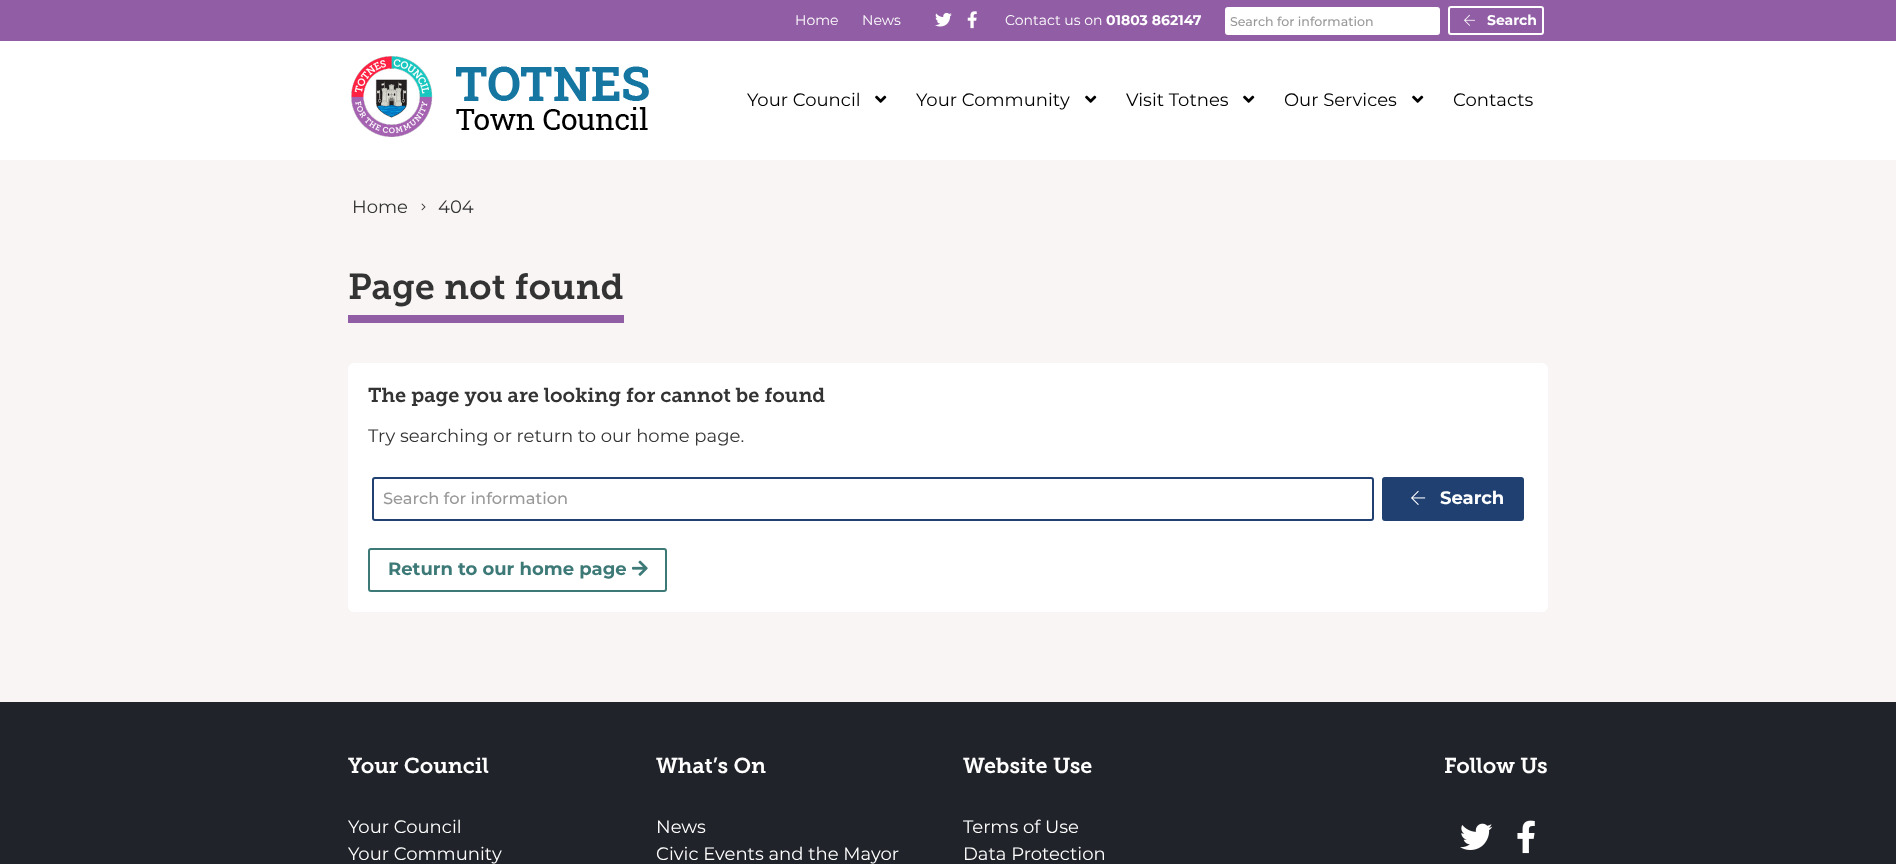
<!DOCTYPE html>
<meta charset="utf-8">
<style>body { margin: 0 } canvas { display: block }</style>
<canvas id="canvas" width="1896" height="864"></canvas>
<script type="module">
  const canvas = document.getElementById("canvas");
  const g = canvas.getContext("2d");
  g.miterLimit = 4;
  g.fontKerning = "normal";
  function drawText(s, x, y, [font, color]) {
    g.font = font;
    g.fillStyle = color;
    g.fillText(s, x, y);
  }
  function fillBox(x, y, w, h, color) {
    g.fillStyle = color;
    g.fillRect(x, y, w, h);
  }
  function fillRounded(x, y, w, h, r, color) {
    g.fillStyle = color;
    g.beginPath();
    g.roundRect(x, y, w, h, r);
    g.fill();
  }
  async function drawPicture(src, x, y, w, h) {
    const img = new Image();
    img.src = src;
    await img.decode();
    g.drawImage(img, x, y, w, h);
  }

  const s1 = ["14px Montserrat", "#FFFFFF"];
  const s2 = ["bold 14px Montserrat", "#FFFFFF"];
  const s3 = ["500 12.6px Montserrat", "#999999"];
  const s4 = ["18px Montserrat", "#000000"];
  const s5 = ["18px Montserrat", "#333333"];
  const s6 = ["600 36px 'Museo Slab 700'", "#333333"];
  const s7 = ["600 20px 'Museo Slab 700'", "#333333"];
  const s8 = ["500 16.25px Montserrat", "#999999"];
  const s9 = ["bold 18px Montserrat", "#FFFFFF"];
  const s10 = ["bold 18px Montserrat", "#3C7977"];
  const s11 = ["600 21.5px 'Museo Slab 700'", "#FFFFFF"];
  const s12 = ["18px Montserrat", "#FFFFFF"];

  fillBox(0, 0, 1896, 864, "#F9F5F4");
  fillBox(0, 0, 1896, 41, "#915DA4");
  drawText("Home", 795, 25, s1);
  drawText("News", 862, 25, s1);
  await drawPicture("pic1.png", 935, 12, 17, 15);
  await drawPicture("pic2.png", 967, 11, 10, 18);
  drawText("Contact us on", 1005, 25, s1);
  drawText("01803 862147", 1106, 25, s2);
  fillRounded(1225, 7, 215, 28, 3, "#FFFFFF");
  drawText("Search for information", 1230, 26, s3);
  g.beginPath();
  g.roundRect(1449, 7, 94, 27, 2);
  g.strokeStyle = "#FFFFFF";
  g.lineWidth = 2;
  g.stroke();
  await drawPicture("pic3.png", 1464, 14, 11, 12);
  drawText("Search", 1487, 25, s2);
  fillBox(0, 41, 1896, 119, "#FFFFFF");
  await drawPicture("pic4.png", 351, 56, 298, 81);
  drawText("Your Council", 747, 106, s4);
  await drawPicture("pic5.png", 875, 95, 12, 8);
  drawText("Your Community", 916, 106, s4);
  await drawPicture("pic5.png", 1085, 95, 12, 8);
  drawText("Visit Totnes", 1126, 106, s4);
  await drawPicture("pic5.png", 1243, 95, 12, 8);
  drawText("Our Services", 1284, 106, s4);
  await drawPicture("pic5.png", 1412, 95, 12, 8);
  drawText("Contacts", 1453, 106, s4);
  drawText("Home", 352, 213, s5);
  await drawPicture("pic6.png", 421, 203, 5, 8);
  drawText("404", 438, 213, s5);
  fillBox(348, 315, 276, 8, "#915DA4");
  drawText("Page not found", 348, 299, s6);
  fillRounded(348, 363, 1200, 249, 6, "#FFFFFF");
  drawText("The page you are looking for cannot be found", 368, 402, s7);
  drawText("Try searching or return to our home page.", 368, 442, s5);
  g.beginPath();
  g.roundRect(373, 478, 1000, 42, 2);
  g.strokeStyle = "#1F4070";
  g.stroke();
  drawText("Search for information", 383, 504, s8);
  g.fillStyle = "#1F4070";
  g.beginPath();
  g.roundRect(1383, 478, 140, 42, 2);
  g.fill();
  g.stroke();
  await drawPicture("pic7.png", 1411, 490, 15, 15);
  drawText("Search", 1440, 504, s9);
  g.beginPath();
  g.roundRect(369, 549, 297, 42, 2);
  g.strokeStyle = "#3C7977";
  g.stroke();
  drawText("Return to our home page", 388, 575, s10);
  await drawPicture("pic8.png", 632, 560, 16, 16);
  fillBox(0, 702, 1896, 162, "#202329");
  drawText("Your Council", 348, 773, s11);
  drawText("Your Council", 348, 833, s12);
  drawText("Your Community", 348, 860, s12);
  drawText("What’s On", 656, 773, s11);
  drawText("News", 656, 833, s12);
  drawText("Civic Events and the Mayor", 656, 860, s12);
  drawText("Website Use", 963, 773, s11);
  drawText("Terms of Use", 963, 833, s12);
  drawText("Data Protection", 963, 860, s12);
  drawText("Follow Us", 1444, 773, s11);
  await drawPicture("pic9.png", 1460, 823, 33, 27);
  await drawPicture("pic10.png", 1517, 820, 18, 34);
</script>
